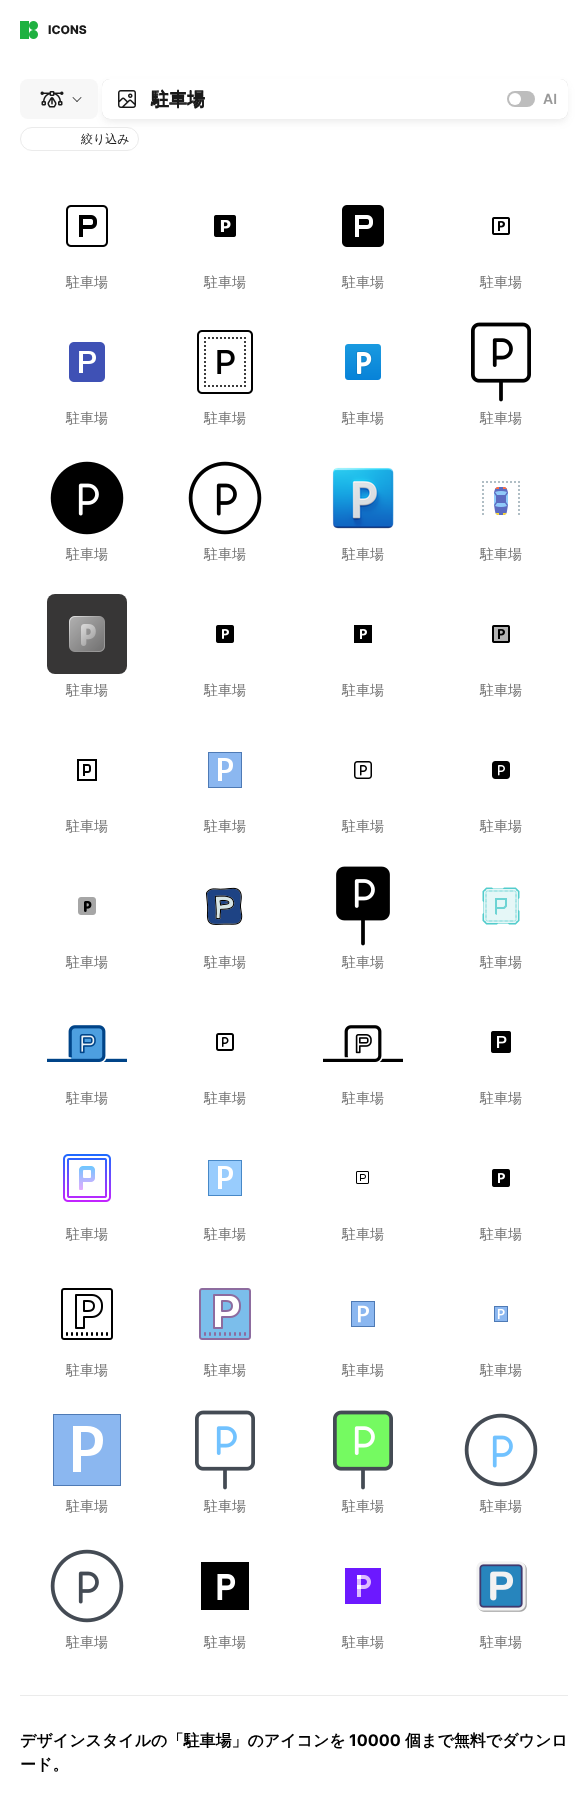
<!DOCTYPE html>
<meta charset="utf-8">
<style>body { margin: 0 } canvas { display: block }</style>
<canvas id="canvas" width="578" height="1801"></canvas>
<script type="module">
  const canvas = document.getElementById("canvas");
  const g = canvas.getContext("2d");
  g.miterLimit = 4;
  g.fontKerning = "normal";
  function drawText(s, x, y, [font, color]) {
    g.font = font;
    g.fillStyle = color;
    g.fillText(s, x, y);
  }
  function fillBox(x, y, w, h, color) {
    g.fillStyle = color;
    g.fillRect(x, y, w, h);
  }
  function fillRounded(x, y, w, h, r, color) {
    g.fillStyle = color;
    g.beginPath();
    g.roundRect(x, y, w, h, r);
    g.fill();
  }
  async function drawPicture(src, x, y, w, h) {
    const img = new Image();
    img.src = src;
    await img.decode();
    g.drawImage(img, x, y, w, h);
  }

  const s1 = ["800 12px Inter", "#1A1A1A"];
  const s2 = ["bold 18px WenQuanYi Zen Hei", "#1A1A1A"];
  const s3 = ["600 14px Inter", "#999999"];
  const s4 = ["500 12px WenQuanYi Zen Hei", "#1A1A1A"];
  const s5 = ["500 14px WenQuanYi Zen Hei", "#737373"];
  const s6 = ["bold 16px WenQuanYi Zen Hei", "#000000"];
  const s7 = ["bold 16px Inter", "#000000"];

  fillBox(0, 0, 578, 1801, "#FFFFFF");
  await drawPicture("pic1.png", 20, 21, 18, 18);
  drawText("ICONS", 48, 34, s1);
  g.beginPath();
  g.roundRect(20.5, 127.5, 118, 23, 11.5);
  g.strokeStyle = "#EBEBEB";
  g.stroke();
  g.fillStyle = "rgba(96, 96, 96, 0.15)";
  g.filter = "blur(4px)";
  g.beginPath();
  g.roundRect(104, 85, 462, 36, 6);
  g.fill();
  g.filter = "none";
  fillRounded(20, 79, 78, 40, 8, "#F7F7F7");
  await drawPicture("pic2.png", 40, 91, 24, 17);
  g.fillStyle = "#1A1A1A";
  g.beginPath();
  g.moveTo(73, 97);
  g.lineTo(77.5, 101.5);
  g.lineTo(77, 102);
  g.lineTo(72.5, 97.5);
  g.closePath();
  g.fill();
  g.beginPath();
  g.moveTo(76.5, 101.5);
  g.lineTo(81, 97);
  g.lineTo(81.5, 97.5);
  g.lineTo(77, 102);
  g.closePath();
  g.fill();
  g.fillStyle = "rgba(96, 96, 96, 0.31)";
  g.filter = "blur(0.5px)";
  g.beginPath();
  g.roundRect(102, 79, 466, 40, 8);
  g.fill();
  g.filter = "none";
  fillRounded(102, 79, 466, 40, 8, "#FFFFFF");
  await drawPicture("pic3.png", 118, 90, 18, 18);
  drawText("駐車場", 151, 105, s2);
  drawText("駐車場", 151, 106, s2);
  fillRounded(507, 91, 28, 16, 8, "#BDBDBD");
  g.fillStyle = "#FFFFFF";
  g.beginPath();
  g.arc(515, 99, 6, 0, Math.PI * 2);
  g.fill();
  drawText("AI", 543, 104, s3);
  drawText("絞り込み", 81, 143, s4);
  await drawPicture("pic4.png", 66, 205, 42, 42);
  drawText("駐車場", 66, 287, s5);
  await drawPicture("pic5.png", 214, 215, 22, 22);
  drawText("駐車場", 204, 287, s5);
  await drawPicture("pic6.png", 342, 205, 42, 42);
  drawText("駐車場", 342, 287, s5);
  await drawPicture("pic7.png", 492, 217, 18, 18);
  drawText("駐車場", 480, 287, s5);
  await drawPicture("pic8.png", 69, 342, 36, 40);
  drawText("駐車場", 66, 423, s5);
  await drawPicture("pic9.png", 197, 330, 56, 64);
  drawText("駐車場", 204, 423, s5);
  await drawPicture("pic10.png", 345, 344, 36, 36);
  drawText("駐車場", 342, 423, s5);
  await drawPicture("pic11.png", 471, 322, 60, 80);
  drawText("駐車場", 480, 423, s5);
  await drawPicture("pic12.png", 50, 461, 74, 74);
  drawText("駐車場", 66, 559, s5);
  await drawPicture("pic13.png", 188, 461, 74, 74);
  drawText("駐車場", 204, 559, s5);
  await drawPicture("pic14.png", 332, 467, 62, 62);
  drawText("駐車場", 342, 559, s5);
  await drawPicture("pic15.png", 482, 481, 38, 34);
  drawText("駐車場", 480, 559, s5);
  fillRounded(47, 594, 80, 80, 8, "#373636");
  await drawPicture("pic16.png", 69, 616, 36, 36);
  drawText("駐車場", 66, 695, s5);
  await drawPicture("pic17.png", 216, 625, 18, 18);
  drawText("駐車場", 204, 695, s5);
  await drawPicture("pic18.png", 354, 625, 18, 18);
  drawText("駐車場", 342, 695, s5);
  await drawPicture("pic19.png", 492, 625, 18, 18);
  drawText("駐車場", 480, 695, s5);
  await drawPicture("pic20.png", 77, 759, 20, 22);
  drawText("駐車場", 66, 831, s5);
  await drawPicture("pic21.png", 208, 752, 34, 36);
  drawText("駐車場", 204, 831, s5);
  await drawPicture("pic22.png", 354, 761, 18, 18);
  drawText("駐車場", 342, 831, s5);
  await drawPicture("pic23.png", 492, 761, 18, 18);
  drawText("駐車場", 480, 831, s5);
  await drawPicture("pic24.png", 78, 897, 18, 18);
  drawText("駐車場", 66, 967, s5);
  await drawPicture("pic25.png", 206, 887, 37, 38);
  drawText("駐車場", 204, 967, s5);
  await drawPicture("pic26.png", 336, 866, 54, 80);
  drawText("駐車場", 342, 967, s5);
  await drawPicture("pic27.png", 482, 887, 38, 38);
  drawText("駐車場", 480, 967, s5);
  await drawPicture("pic28.png", 47, 1025, 80, 37);
  drawText("駐車場", 66, 1103, s5);
  await drawPicture("pic29.png", 216, 1033, 18, 18);
  drawText("駐車場", 204, 1103, s5);
  await drawPicture("pic30.png", 323, 1025, 80, 37);
  drawText("駐車場", 342, 1103, s5);
  await drawPicture("pic31.png", 491, 1031, 20, 22);
  drawText("駐車場", 480, 1103, s5);
  await drawPicture("pic32.png", 63, 1154, 48, 48);
  drawText("駐車場", 66, 1239, s5);
  await drawPicture("pic33.png", 208, 1160, 34, 36);
  drawText("駐車場", 204, 1239, s5);
  await drawPicture("pic34.png", 356, 1171, 13, 13);
  drawText("駐車場", 342, 1239, s5);
  await drawPicture("pic35.png", 492, 1169, 18, 18);
  drawText("駐車場", 480, 1239, s5);
  await drawPicture("pic36.png", 61, 1288, 52, 52);
  drawText("駐車場", 66, 1375, s5);
  await drawPicture("pic37.png", 199, 1288, 52, 52);
  drawText("駐車場", 204, 1375, s5);
  await drawPicture("pic38.png", 351, 1301, 24, 26);
  drawText("駐車場", 342, 1375, s5);
  await drawPicture("pic39.png", 494, 1306, 14, 16);
  drawText("駐車場", 480, 1375, s5);
  await drawPicture("pic40.png", 53, 1414, 68, 72);
  drawText("駐車場", 66, 1511, s5);
  await drawPicture("pic41.png", 195, 1410, 60, 80);
  drawText("駐車場", 204, 1511, s5);
  await drawPicture("pic42.png", 333, 1410, 60, 80);
  drawText("駐車場", 342, 1511, s5);
  await drawPicture("pic43.png", 464, 1413, 74, 74);
  drawText("駐車場", 480, 1511, s5);
  await drawPicture("pic44.png", 50, 1549, 74, 74);
  drawText("駐車場", 66, 1647, s5);
  await drawPicture("pic45.png", 201, 1562, 48, 48);
  drawText("駐車場", 204, 1647, s5);
  await drawPicture("pic46.png", 345, 1568, 36, 36);
  drawText("駐車場", 342, 1647, s5);
  await drawPicture("pic47.png", 476, 1561, 51, 51);
  drawText("駐車場", 480, 1647, s5);
  fillBox(20, 1695, 548, 1, "#EBEBEB");
  drawText("デザインスタイルの「駐車場」のアイコンを", 20, 1746, s6);
  drawText("10000", 349, 1746, s7);
  drawText("個まで無料でダウンロ", 405, 1746, s6);
  drawText("ード。", 20, 1770, s6);
</script>
